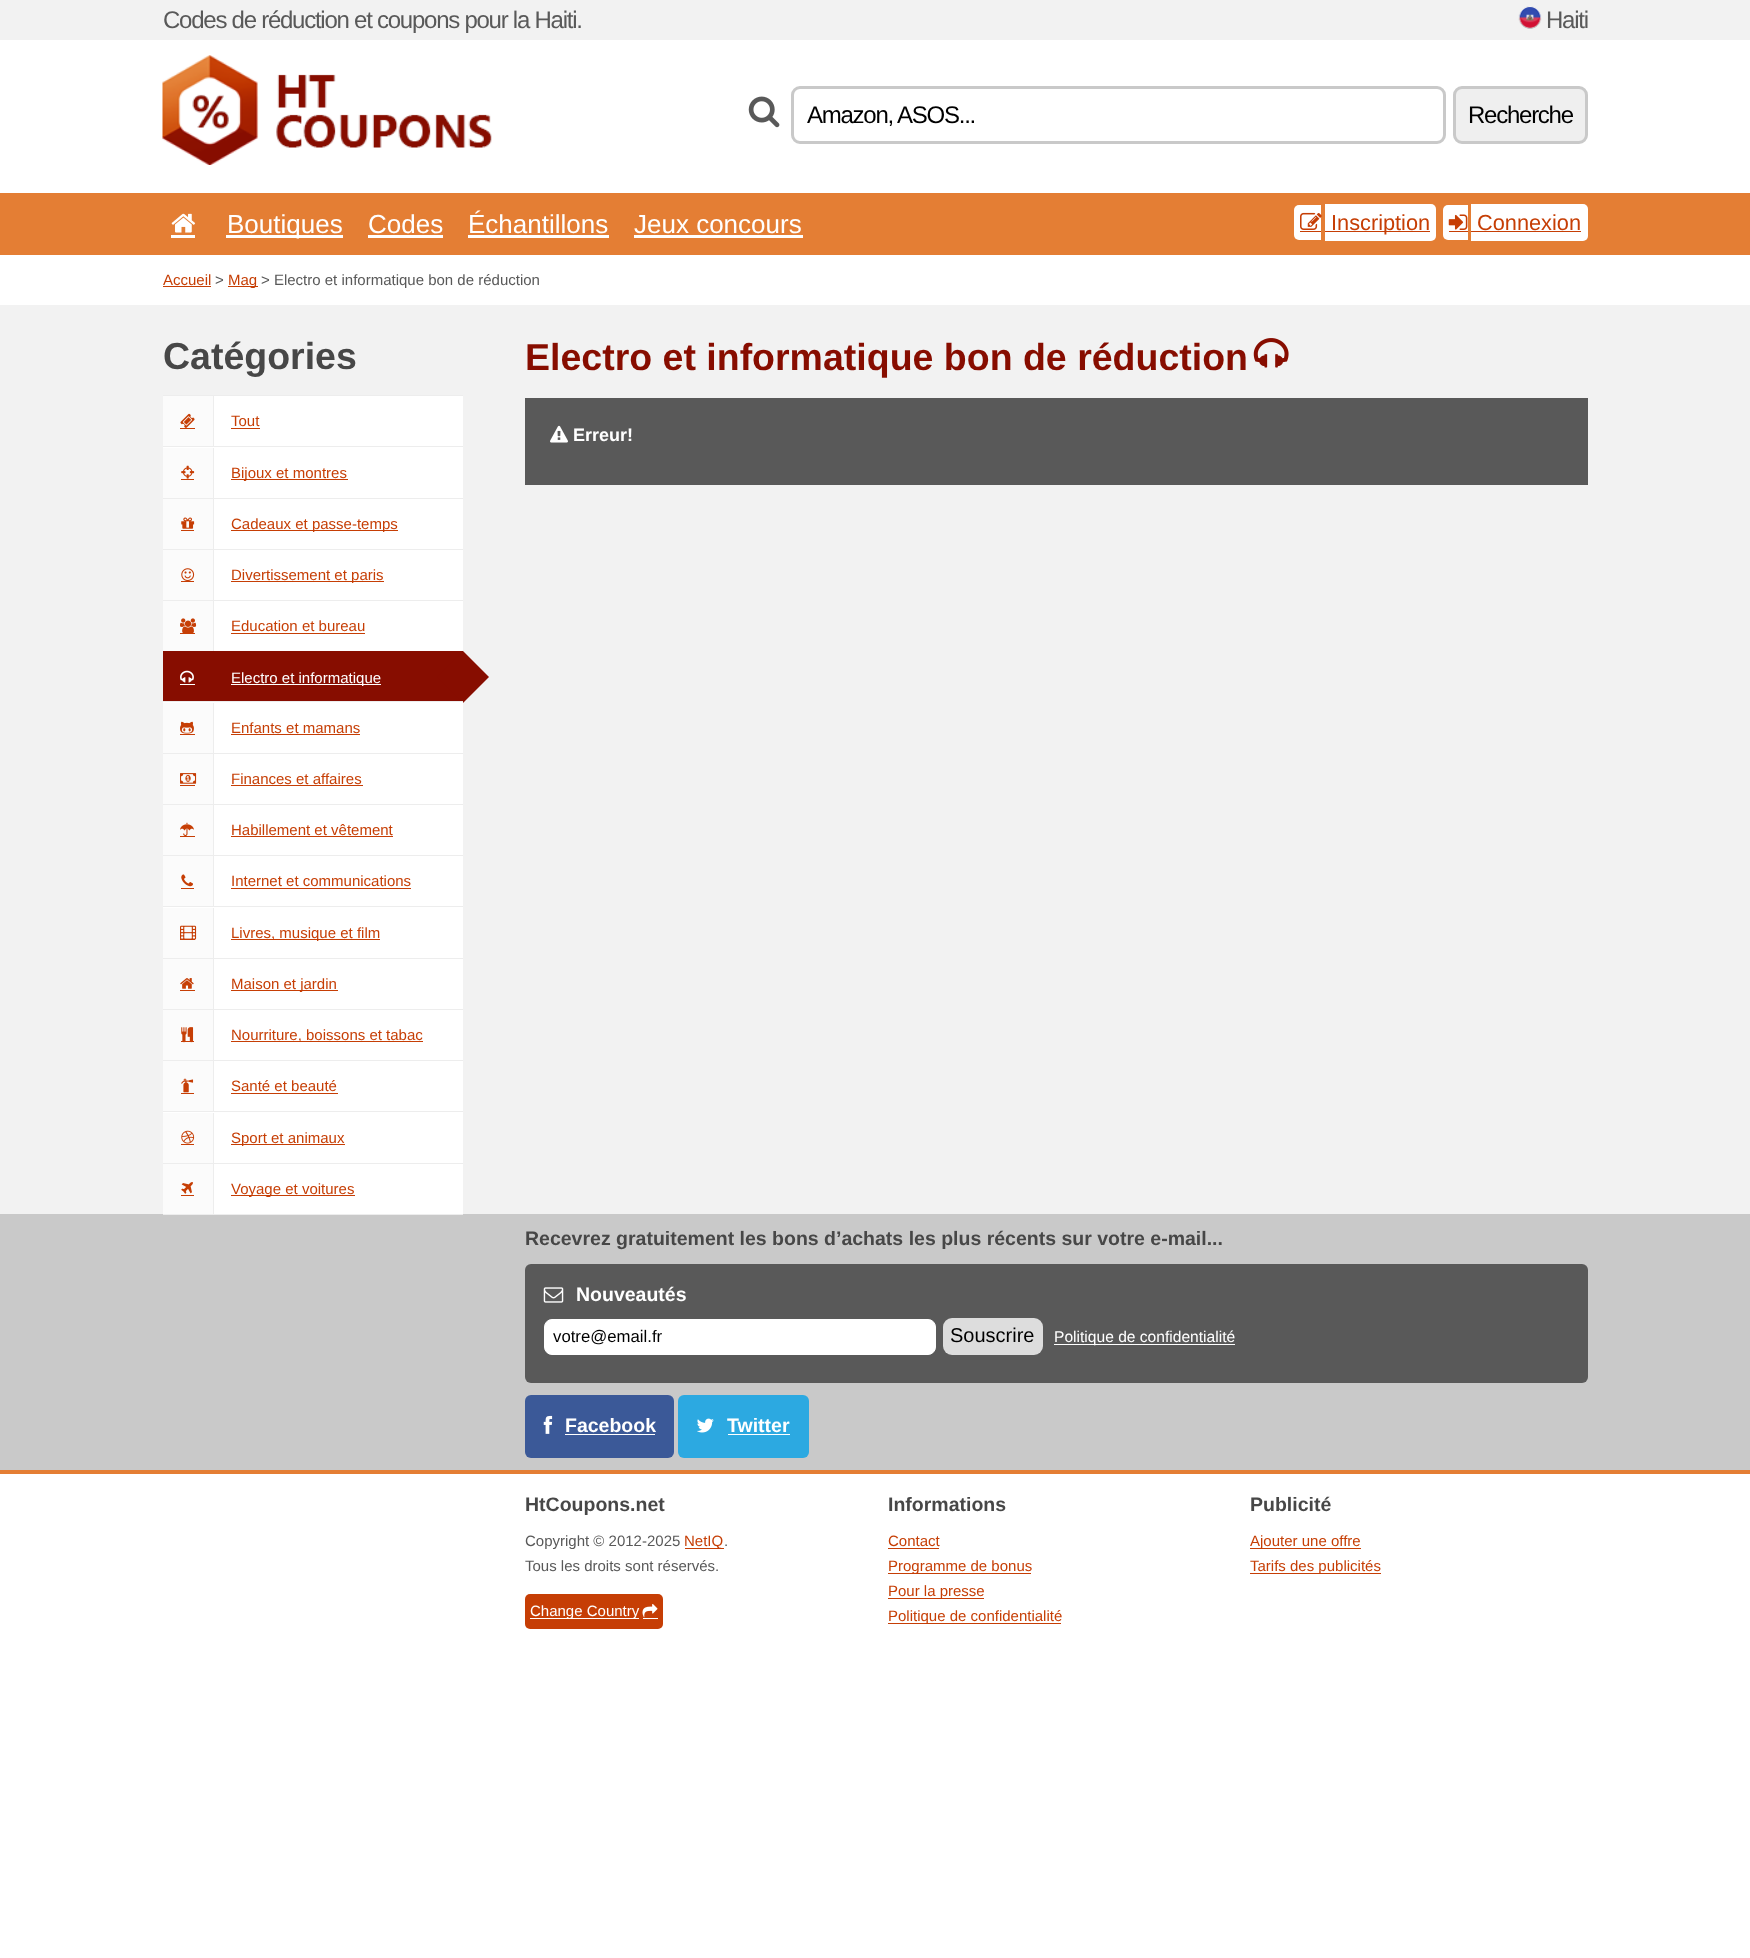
<!DOCTYPE html>
<meta charset="utf-8">
<style>body { margin: 0 } canvas { display: block }</style>
<canvas id="canvas" width="1750" height="1958"></canvas>
<script type="module">
  const canvas = document.getElementById("canvas");
  const g = canvas.getContext("2d");
  g.miterLimit = 4;
  g.fontKerning = "normal";
  function drawText(s, x, y, [font, color]) {
    g.font = font;
    g.fillStyle = color;
    g.fillText(s, x, y);
  }
  function fillBox(x, y, w, h, color) {
    g.fillStyle = color;
    g.fillRect(x, y, w, h);
  }
  function fillRounded(x, y, w, h, r, color) {
    g.fillStyle = color;
    g.beginPath();
    g.roundRect(x, y, w, h, r);
    g.fill();
  }
  async function drawPicture(src, x, y, w, h) {
    const img = new Image();
    img.src = src;
    await img.decode();
    g.drawImage(img, x, y, w, h);
  }

  const s1 = ["24px Liberation Sans", "#595959"];
  const s2 = ["24px Liberation Sans", "#000000"];
  const s3 = ["26px Liberation Sans", "#FFFFFF"];
  const s4 = ["21.75px Liberation Sans", "#C63E05"];
  const s5 = ["15px Liberation Sans", "#C63E05"];
  const s6 = ["15px Liberation Sans", "#595959"];
  const s7 = ["bold 37.5px Liberation Sans", "#474747"];
  const s8 = ["15px Liberation Sans", "#FFFFFF"];
  const s9 = ["bold 37.5px Liberation Sans", "#870D00"];
  const s10 = ["bold 18px Liberation Sans", "#FFFFFF"];
  const s11 = ["bold 19.5px Liberation Sans", "#474747"];
  const s12 = ["bold 19.5px Liberation Sans", "#FFFFFF"];
  const s13 = ["16.75px Liberation Sans", "#000000"];
  const s14 = ["20px Liberation Sans", "#000000"];
  const s15 = ["15.6px Liberation Sans", "#FFFFFF"];

  fillBox(0, 0, 1750, 1958, "#FFFFFF");
  fillBox(0, 0, 1750, 40, "#F2F2F2");
  g.letterSpacing = "-1.25px";
  drawText("Codes de réduction et coupons pour la Haiti.", 163, 28, s1);
  await drawPicture("pic1.png", 1518, 6, 24, 23);
  drawText("Haiti", 1546, 28, s1);
  fillBox(0, 305, 1750, 909, "#F2F2F2");
  await drawPicture("pic2.png", 162, 55, 330, 110);
  await drawPicture("pic3.png", 748, 96, 32, 32);
  g.beginPath();
  g.roundRect(792.5, 87.5, 652, 55, 7.5);
  g.strokeStyle = "#C9C9C9";
  g.lineWidth = 3;
  g.stroke();
  drawText("Amazon, ASOS...", 807, 123, s2);
  g.fillStyle = "#EFEFEF";
  g.beginPath();
  g.roundRect(1454.5, 87.5, 132, 55, 7.5);
  g.fill();
  g.stroke();
  drawText("Recherche", 1468, 123, s2);
  fillBox(0, 193, 1750, 62, "#E47E34");
  await drawPicture("pic4.png", 171, 213, 25, 20);
  fillBox(171, 235, 24, 3, "#FFFFFF");
  fillBox(226, 235, 117, 3, "#FFFFFF");
  g.letterSpacing = "0px";
  drawText("Boutiques", 227, 233, s3);
  drawText("Codes", 368, 233, s3);
  fillBox(368, 235, 75, 3, "#FFFFFF");
  drawText("Échantillons", 468, 233, s3);
  fillBox(468, 235, 141, 3, "#FFFFFF");
  drawText("Jeux concours", 634, 233, s3);
  fillBox(634, 235, 169, 3, "#FFFFFF");
  g.beginPath();
  g.roundRect(1294, 205, 27, 35, [5, 0, 0, 5]);
  g.fill();
  await drawPicture("pic5.png", 1300, 212, 22, 18);
  g.beginPath();
  g.roundRect(1325, 204, 111, 37, [0, 5, 5, 0]);
  g.fill();
  fillBox(1325, 231, 105, 1, "#C63E05");
  drawText("Inscription", 1331, 230, s4);
  fillBox(1300, 231, 21, 1, "#C63E05");
  g.fillStyle = "#FFFFFF";
  g.beginPath();
  g.roundRect(1443, 205, 25, 35, [5, 0, 0, 5]);
  g.fill();
  await drawPicture("pic6.png", 1448, 214, 20, 16);
  g.beginPath();
  g.roundRect(1471, 204, 117, 37, [0, 5, 5, 0]);
  g.fill();
  drawText("Connexion", 1477, 230, s4);
  fillBox(1449, 231, 19, 1, "#C63E05");
  fillBox(1471, 231, 110, 1, "#C63E05");
  drawText("Accueil", 163, 285, s5);
  fillBox(163, 286, 48, 1, "#C63E05");
  drawText(">", 215, 285, s6);
  fillBox(228, 286, 30, 1, "#C63E05");
  drawText("Mag", 228, 285, s5);
  drawText("> Electro et informatique bon de réduction", 261, 285, s6);
  drawText("Catégories", 163, 369, s7);
  fillBox(214, 396, 249, 50, "#FFFFFF");
  fillBox(163, 395, 300, 1, "#EDEDED");
  fillBox(163, 396, 50, 50, "#FBFBFB");
  fillBox(213, 396, 1, 50, "#EDEDED");
  await drawPicture("pic7.png", 180, 413, 15, 15);
  fillBox(180, 428, 15, 1, "#C63E05");
  drawText("Tout", 231, 426, s5);
  fillBox(231, 428, 29, 1, "#C63E05");
  fillBox(163, 447, 300, 51, "#FFFFFF");
  fillBox(163, 446, 300, 1, "#EDEDED");
  fillBox(163, 448, 50, 50, "#FBFBFB");
  fillBox(213, 448, 1, 50, "#EDEDED");
  await drawPicture("pic8.png", 181, 465, 14, 14);
  fillBox(181, 479, 13, 1, "#C63E05");
  fillBox(231, 479, 117, 1, "#C63E05");
  drawText("Bijoux et montres", 231, 478, s5);
  fillBox(214, 499, 249, 50, "#FFFFFF");
  fillBox(163, 498, 300, 1, "#EDEDED");
  fillBox(163, 499, 50, 50, "#FBFBFB");
  fillBox(213, 499, 1, 50, "#EDEDED");
  await drawPicture("pic9.png", 181, 517, 14, 12);
  fillBox(181, 530, 13, 1, "#C63E05");
  fillBox(231, 530, 167, 1, "#C63E05");
  drawText("Cadeaux et passe-temps", 231, 529, s5);
  fillBox(214, 550, 249, 50, "#FFFFFF");
  fillBox(163, 549, 300, 1, "#EDEDED");
  fillBox(163, 550, 50, 50, "#FBFBFB");
  fillBox(213, 550, 1, 50, "#EDEDED");
  await drawPicture("pic10.png", 181, 568, 14, 13);
  fillBox(181, 581, 13, 1, "#C63E05");
  fillBox(231, 581, 153, 1, "#C63E05");
  drawText("Divertissement et paris", 231, 580, s5);
  fillBox(214, 601, 249, 50, "#FFFFFF");
  fillBox(163, 600, 300, 1, "#EDEDED");
  fillBox(163, 601, 50, 50, "#FBFBFB");
  fillBox(213, 601, 1, 50, "#EDEDED");
  await drawPicture("pic11.png", 180, 618, 17, 15);
  fillBox(180, 633, 15, 1, "#C63E05");
  drawText("Education et bureau", 231, 631, s5);
  fillBox(231, 633, 134, 1, "#C63E05");
  fillBox(163, 651, 300, 50, "#870D00");
  await drawPicture("pic12.png", 180, 670, 14, 13);
  fillBox(180, 684, 15, 1, "#FFFFFF");
  fillBox(231, 684, 150, 1, "#FFFFFF");
  drawText("Electro et informatique", 231, 683, s8);
  g.fillStyle = "#870D00";
  g.beginPath();
  g.moveTo(463, 651);
  g.lineTo(489, 677);
  g.lineTo(463, 703);
  g.lineTo(437, 677);
  g.closePath();
  g.fill();
  fillBox(163, 702, 300, 51, "#FFFFFF");
  fillBox(163, 701, 300, 1, "#EDEDED");
  fillBox(163, 703, 50, 50, "#FBFBFB");
  fillBox(213, 703, 1, 50, "#EDEDED");
  await drawPicture("pic13.png", 180, 721, 14, 13);
  fillBox(180, 734, 15, 1, "#C63E05");
  drawText("Enfants et mamans", 231, 733, s5);
  fillBox(231, 734, 129, 1, "#C63E05");
  fillBox(214, 754, 249, 50, "#FFFFFF");
  fillBox(163, 753, 300, 1, "#EDEDED");
  fillBox(163, 754, 50, 50, "#FBFBFB");
  fillBox(213, 754, 1, 50, "#EDEDED");
  await drawPicture("pic14.png", 180, 773, 17, 11);
  fillBox(180, 785, 15, 1, "#C63E05");
  drawText("Finances et affaires", 231, 784, s5);
  fillBox(231, 785, 132, 1, "#C63E05");
  fillBox(214, 805, 249, 50, "#FFFFFF");
  fillBox(163, 804, 300, 1, "#EDEDED");
  fillBox(163, 805, 50, 50, "#FBFBFB");
  fillBox(213, 805, 1, 50, "#EDEDED");
  await drawPicture("pic15.png", 180, 822, 14, 14);
  fillBox(180, 836, 15, 1, "#C63E05");
  drawText("Habillement et vêtement", 231, 835, s5);
  fillBox(231, 836, 162, 1, "#C63E05");
  fillBox(214, 856, 249, 50, "#FFFFFF");
  fillBox(163, 855, 300, 1, "#EDEDED");
  fillBox(163, 856, 50, 50, "#FBFBFB");
  fillBox(213, 856, 1, 50, "#EDEDED");
  await drawPicture("pic16.png", 181, 874, 12, 13);
  fillBox(181, 888, 13, 1, "#C63E05");
  drawText("Internet et communications", 231, 886, s5);
  fillBox(231, 888, 180, 1, "#C63E05");
  fillBox(163, 907, 300, 51, "#FFFFFF");
  fillBox(163, 906, 300, 1, "#EDEDED");
  fillBox(163, 908, 50, 50, "#FBFBFB");
  fillBox(213, 908, 1, 50, "#EDEDED");
  fillBox(180, 939, 15, 1, "#C63E05");
  await drawPicture("pic17.png", 180, 925, 17, 15);
  fillBox(231, 939, 149, 1, "#C63E05");
  drawText("Livres, musique et film", 231, 938, s5);
  fillBox(214, 959, 249, 50, "#FFFFFF");
  fillBox(163, 958, 300, 1, "#EDEDED");
  fillBox(163, 959, 50, 50, "#FBFBFB");
  fillBox(213, 959, 1, 50, "#EDEDED");
  await drawPicture("pic18.png", 180, 978, 14, 11);
  fillBox(180, 990, 15, 1, "#C63E05");
  fillBox(231, 990, 107, 1, "#C63E05");
  drawText("Maison et jardin", 231, 989, s5);
  fillBox(214, 1010, 249, 50, "#FFFFFF");
  fillBox(163, 1009, 300, 1, "#EDEDED");
  fillBox(163, 1010, 50, 50, "#FBFBFB");
  fillBox(213, 1010, 1, 50, "#EDEDED");
  fillBox(181, 1041, 13, 1, "#C63E05");
  await drawPicture("pic19.png", 181, 1027, 13, 16);
  fillBox(231, 1041, 192, 1, "#C63E05");
  drawText("Nourriture, boissons et tabac", 231, 1040, s5);
  fillBox(214, 1061, 249, 50, "#FFFFFF");
  fillBox(163, 1060, 300, 1, "#EDEDED");
  fillBox(163, 1061, 50, 50, "#FBFBFB");
  fillBox(213, 1061, 1, 50, "#EDEDED");
  await drawPicture("pic20.png", 181, 1078, 13, 15);
  fillBox(181, 1093, 13, 1, "#C63E05");
  drawText("Santé et beauté", 231, 1091, s5);
  fillBox(231, 1093, 107, 1, "#C63E05");
  fillBox(163, 1112, 300, 51, "#FFFFFF");
  fillBox(163, 1111, 300, 1, "#EDEDED");
  fillBox(163, 1113, 50, 50, "#FBFBFB");
  fillBox(213, 1113, 1, 50, "#EDEDED");
  await drawPicture("pic21.png", 181, 1130, 14, 14);
  fillBox(181, 1144, 13, 1, "#C63E05");
  fillBox(231, 1144, 114, 1, "#C63E05");
  drawText("Sport et animaux", 231, 1143, s5);
  fillBox(214, 1164, 249, 50, "#FFFFFF");
  fillBox(163, 1163, 300, 1, "#EDEDED");
  fillBox(0, 1214, 1750, 256, "#C9C9C9");
  fillBox(163, 1214, 300, 1, "#EDEDED");
  fillBox(163, 1164, 50, 50, "#FBFBFB");
  fillBox(213, 1164, 1, 50, "#EDEDED");
  await drawPicture("pic22.png", 181, 1182, 12, 12);
  fillBox(181, 1195, 13, 1, "#C63E05");
  fillBox(231, 1195, 124, 1, "#C63E05");
  drawText("Voyage et voitures", 231, 1194, s5);
  drawText("Electro et informatique bon de réduction", 525, 370, s9);
  await drawPicture("pic23.png", 1253, 338, 36, 30);
  fillBox(525, 398, 1063, 87, "#595959");
  await drawPicture("pic24.png", 550, 425, 18, 18);
  drawText("Erreur!", 573, 441, s10);
  drawText("Recevrez gratuitement les bons d’achats les plus récents sur votre e-mail...", 525, 1245, s11);
  fillRounded(525, 1264, 1063, 119, 6, "#595959");
  await drawPicture("pic25.png", 543, 1287, 21, 16);
  drawText("Nouveautés", 576, 1301, s12);
  g.beginPath();
  g.roundRect(544.5, 1319.5, 391, 35, 7.5);
  g.fill();
  g.strokeStyle = "#FFFFFF";
  g.lineWidth = 1;
  g.stroke();
  drawText("votre@email.fr", 553, 1342, s13);
  fillRounded(943, 1318, 100, 37, 9, "#DDDDDD");
  drawText("Souscrire", 950, 1342, s14);
  fillBox(1054, 1344, 181, 1, "#FFFFFF");
  drawText("Politique de confidentialité", 1054, 1342, s15);
  fillRounded(525, 1395, 149, 63, 6, "#3B5998");
  await drawPicture("pic26.png", 543, 1415, 10, 19);
  drawText("Facebook", 565, 1432, s12);
  fillBox(565, 1434, 90, 1, "#FFFFFF");
  fillRounded(678, 1395, 131, 63, 6, "#2CA9E1");
  await drawPicture("pic27.png", 697, 1418, 17, 15);
  drawText("Twitter", 727, 1432, s12);
  fillBox(728, 1434, 62, 1, "#FFFFFF");
  fillBox(0, 1470, 1750, 4, "#E47E34");
  drawText("HtCoupons.net", 525, 1511, s11);
  drawText("Copyright © 2012-2025", 525, 1546, s6);
  fillBox(685, 1548, 39, 1, "#C63E05");
  drawText("NetIQ", 684, 1546, s5);
  drawText(".", 724, 1546, s6);
  drawText("Tous les droits sont réservés.", 525, 1571, s6);
  fillRounded(525, 1594, 138, 35, 5, "#C63E05");
  fillBox(530, 1618, 109, 1, "#FFFFFF");
  drawText("Change Country", 530, 1616, s8);
  await drawPicture("pic28.png", 642, 1604, 16, 14);
  fillBox(643, 1618, 15, 1, "#FFFFFF");
  drawText("Informations", 888, 1511, s11);
  drawText("Contact", 888, 1546, s5);
  fillBox(888, 1548, 51, 1, "#C63E05");
  fillBox(888, 1573, 143, 1, "#C63E05");
  drawText("Programme de bonus", 888, 1571, s5);
  fillBox(888, 1598, 96, 1, "#C63E05");
  drawText("Pour la presse", 888, 1596, s5);
  fillBox(888, 1623, 173, 1, "#C63E05");
  drawText("Politique de confidentialité", 888, 1621, s5);
  drawText("Publicité", 1250, 1511, s11);
  fillBox(1250, 1548, 111, 1, "#C63E05");
  drawText("Ajouter une offre", 1250, 1546, s5);
  fillBox(1250, 1573, 131, 1, "#C63E05");
  drawText("Tarifs des publicités", 1250, 1571, s5);
</script>
